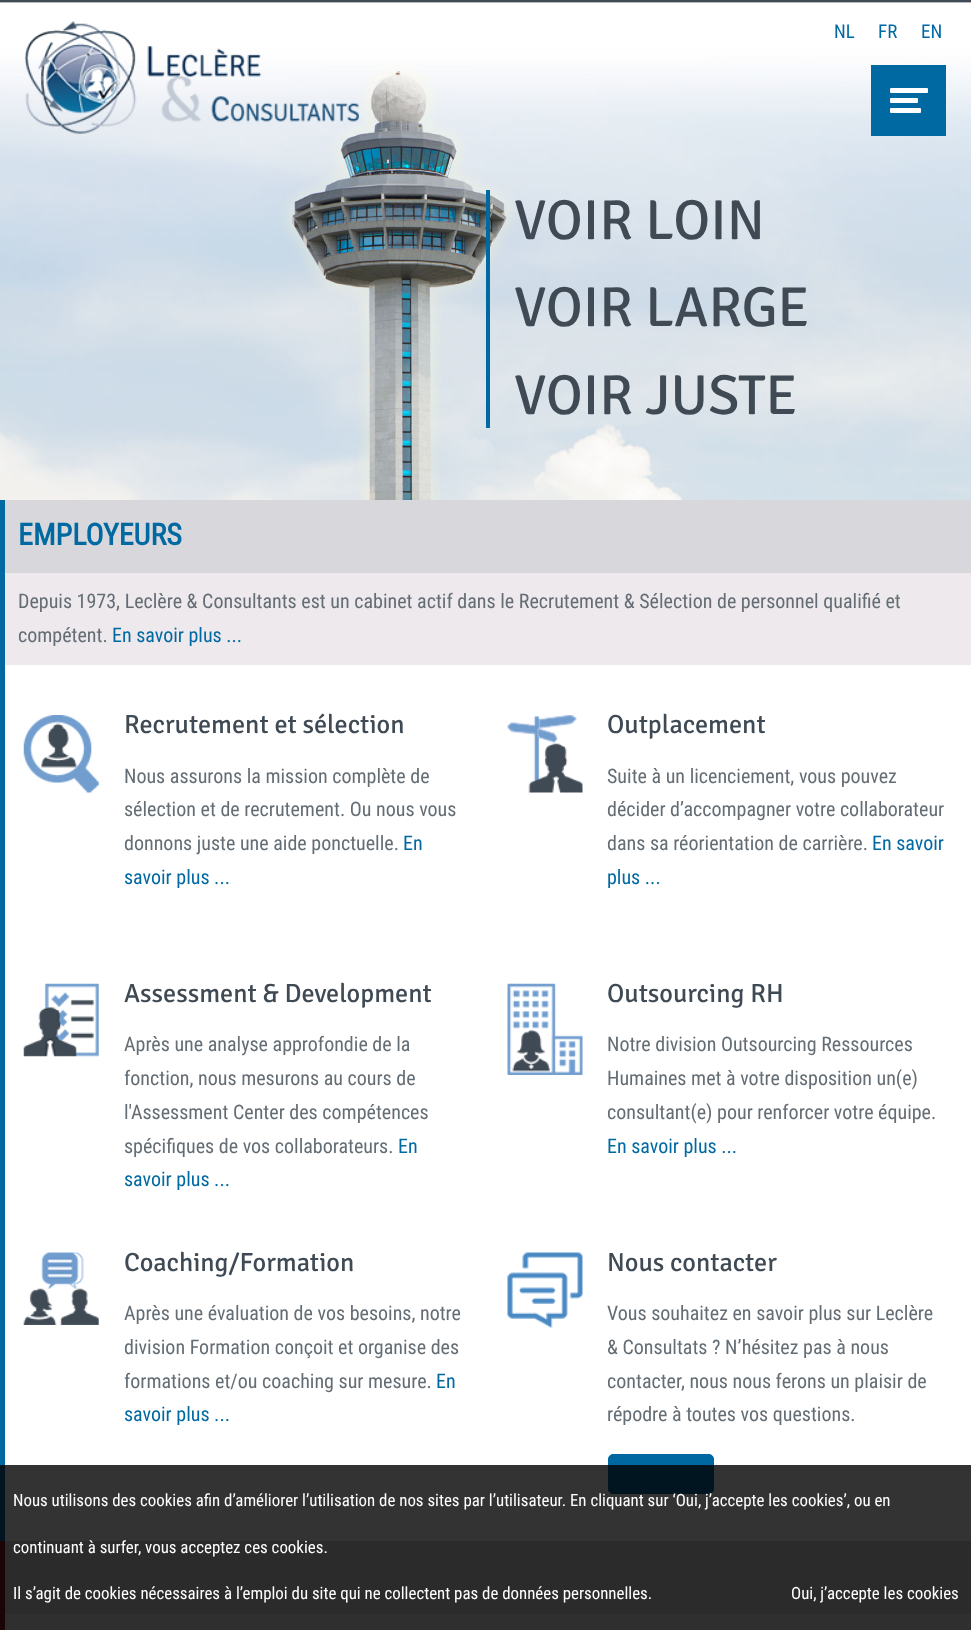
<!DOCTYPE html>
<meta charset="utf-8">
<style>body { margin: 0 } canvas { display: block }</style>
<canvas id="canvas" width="971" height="1630"></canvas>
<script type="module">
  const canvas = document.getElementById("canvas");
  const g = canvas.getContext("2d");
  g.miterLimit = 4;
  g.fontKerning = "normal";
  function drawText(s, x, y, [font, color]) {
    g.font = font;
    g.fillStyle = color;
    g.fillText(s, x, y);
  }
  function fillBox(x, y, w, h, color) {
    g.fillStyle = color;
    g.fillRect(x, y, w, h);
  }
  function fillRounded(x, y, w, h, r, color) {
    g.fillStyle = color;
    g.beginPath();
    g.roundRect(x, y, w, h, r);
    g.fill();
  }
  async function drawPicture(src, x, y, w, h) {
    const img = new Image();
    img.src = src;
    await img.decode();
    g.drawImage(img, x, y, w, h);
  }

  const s1 = ["19px Roboto Condensed", "#0069A2"];
  const s2 = ["56.25px Signika", "#3F4A54"];
  const s3 = ["bold 30px Roboto Condensed", "#0069A2"];
  const s4 = ["20px Roboto Condensed", "#646D74"];
  const s5 = ["20px Roboto Condensed", "#0069A2"];
  const s6 = ["26.25px 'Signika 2'", "#3F4A54"];
  const s7 = ["16.88px Roboto Condensed", "#FFFFFF"];

  fillBox(0, 0, 971, 1630, "#3F4A54");
  await drawPicture("pic2.png", 0, 2, 971, 1);
  await drawPicture("pic3.png", 0, 2, 971, 498);
  await drawPicture("pic1.png", 25, 21, 334, 113);
  drawText("NL", 834, 38, s1);
  drawText("FR", 878, 38, s1);
  drawText("EN", 921, 38, s1);
  fillBox(871, 65, 75, 71, "#0069A2");
  fillRounded(890, 88, 38, 5, 1, "#FFFFFF");
  fillRounded(890, 98, 28, 5, 1, "#FFFFFF");
  fillRounded(890, 108, 31, 5, 1, "#FFFFFF");
  fillBox(486, 190, 4, 238, "#0069A2");
  drawText("VOIR LOIN", 514, 239, s2);
  drawText("VOIR LARGE", 514, 326, s2);
  drawText("VOIR JUSTE", 514, 414, s2);
  fillBox(5, 665, 966, 876, "#FFFFFF");
  fillBox(0, 500, 5, 1041, "#0069A2");
  fillBox(5, 500, 966, 73, "#D8D7DB");
  drawText("EMPLOYEURS", 18, 545, s3);
  fillBox(5, 573, 966, 92, "#EDE9ED");
  drawText("Depuis 1973, Leclère & Consultants est un cabinet actif dans le Recrutement & Sélection de personnel qualifié et", 18, 608, s4);
  drawText("compétent.", 18, 642, s4);
  drawText("En savoir plus ...", 112, 642, s5);
  await drawPicture("pic4.png", 23, 715, 76, 78);
  drawText("Recrutement et sélection", 124, 733, s6);
  drawText("Nous assurons la mission complète de", 124, 783, s4);
  drawText("sélection et de recrutement. Ou nous vous", 124, 816, s4);
  drawText("donnons juste une aide ponctuelle.", 124, 850, s4);
  drawText("En", 403, 850, s5);
  drawText("savoir plus ...", 124, 884, s5);
  await drawPicture("pic5.png", 507, 715, 76, 78);
  drawText("Outplacement", 607, 733, s6);
  drawText("Suite à un licenciement, vous pouvez", 607, 783, s4);
  drawText("décider d’accompagner votre collaborateur", 607, 816, s4);
  drawText("dans sa réorientation de carrière.", 607, 850, s4);
  drawText("En savoir", 872, 850, s5);
  drawText("plus ...", 607, 884, s5);
  await drawPicture("pic6.png", 23, 983, 76, 74);
  drawText("Assessment & Development", 124, 1002, s6);
  drawText("Après une analyse approfondie de la", 124, 1051, s4);
  drawText("fonction, nous mesurons au cours de", 124, 1085, s4);
  drawText("l'Assessment Center des compétences", 124, 1119, s4);
  drawText("spécifiques de vos collaborateurs.", 124, 1153, s4);
  drawText("En", 398, 1153, s5);
  drawText("savoir plus ...", 124, 1186, s5);
  await drawPicture("pic7.png", 507, 983, 76, 92);
  drawText("Outsourcing RH", 607, 1002, s6);
  drawText("Notre division Outsourcing Ressources", 607, 1051, s4);
  drawText("Humaines met à votre disposition un(e)", 607, 1085, s4);
  drawText("consultant(e) pour renforcer votre équipe.", 607, 1119, s4);
  drawText("En savoir plus ...", 607, 1153, s5);
  await drawPicture("pic8.png", 23, 1252, 76, 73);
  drawText("Coaching/Formation", 124, 1271, s6);
  drawText("Après une évaluation de vos besoins, notre", 124, 1320, s4);
  drawText("division Formation conçoit et organise des", 124, 1354, s4);
  drawText("formations et/ou coaching sur mesure.", 124, 1388, s4);
  drawText("En", 436, 1388, s5);
  drawText("savoir plus ...", 124, 1421, s5);
  await drawPicture("pic9.png", 507, 1252, 76, 76);
  drawText("Nous contacter", 607, 1271, s6);
  drawText("Vous souhaitez en savoir plus sur Leclère", 607, 1320, s4);
  drawText("& Consultats ? N’hésitez pas à nous", 607, 1354, s4);
  drawText("contacter, nous nous ferons un plaisir de", 607, 1388, s4);
  drawText("répodre à toutes vos questions.", 607, 1421, s4);
  g.fillStyle = "#0068A0";
  g.beginPath();
  g.roundRect(608.5, 1454.5, 105, 39, 4.5);
  g.fill();
  g.strokeStyle = "#0068A0";
  g.stroke();
  fillBox(0, 1541, 5, 89, "#881519");
  fillBox(5, 1541, 966, 73, "#D8D7DB");
  fillBox(5, 1614, 966, 16, "#EDE9ED");
  fillBox(0, 1465, 971, 165, "rgba(0, 0, 0, 0.8)");
  drawText("Nous utilisons des cookies afin d’améliorer l’utilisation de nos sites par l’utilisateur. En cliquant sur ‘Oui, j’accepte les cookies’, ou en", 13, 1506, s7);
  drawText("continuant à surfer, vous acceptez ces cookies.", 13, 1553, s7);
  drawText("Il s’agit de cookies nécessaires à l’emploi du site qui ne collectent pas de données personnelles.", 13, 1599, s7);
  drawText("Oui, j’accepte les cookies", 791, 1599, s7);
</script>
